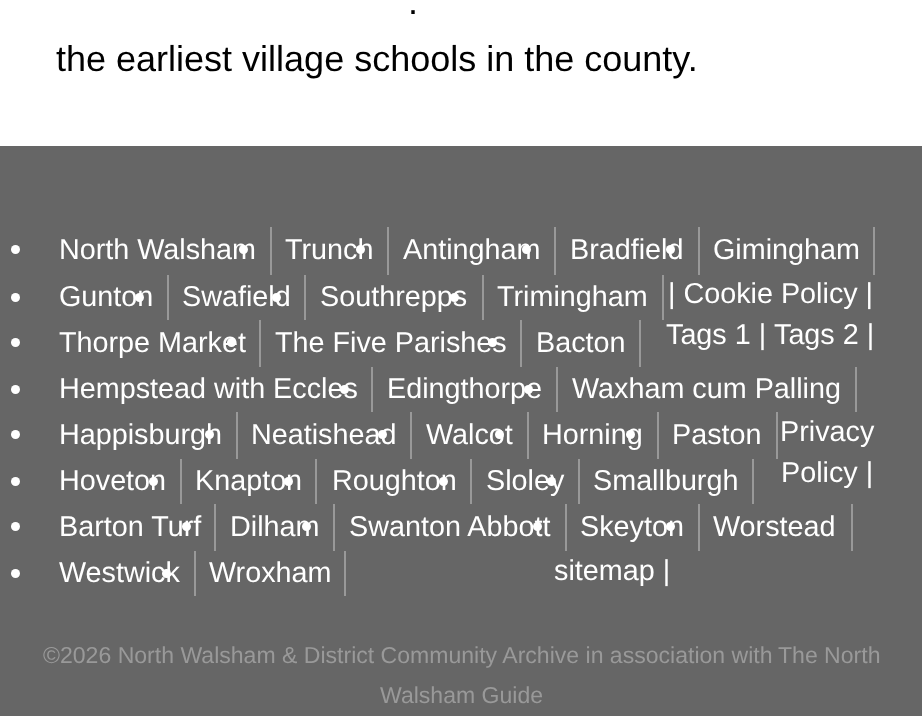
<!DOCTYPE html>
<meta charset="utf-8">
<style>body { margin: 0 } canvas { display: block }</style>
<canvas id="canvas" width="922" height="716"></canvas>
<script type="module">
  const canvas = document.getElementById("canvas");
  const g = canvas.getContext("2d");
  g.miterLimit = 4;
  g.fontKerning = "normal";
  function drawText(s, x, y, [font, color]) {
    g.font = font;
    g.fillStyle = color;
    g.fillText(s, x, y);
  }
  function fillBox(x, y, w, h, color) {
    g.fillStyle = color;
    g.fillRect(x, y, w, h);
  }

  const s1 = ["36px Liberation Sans", "#000000"];
  const s2 = ["28.75px Liberation Sans", "#FFFFFF"];
  const s3 = ["23.05px Liberation Sans", "#999999"];

  fillBox(0, 0, 922, 716, "#FFFFFF");
  drawText(".", 408, 14, s1);
  drawText("the earliest village schools in the county.", 56, 71, s1);
  fillBox(0, 146, 922, 570, "#666666");
  fillBox(270, 227, 2, 48, "#999999");
  g.fillStyle = "#FFFFFF";
  g.beginPath();
  g.arc(15.5, 249.5, 4.5, 0, Math.PI * 2);
  g.fill();
  drawText("North Walsham", 59, 259, s2);
  fillBox(387, 227, 2, 48, "#999999");
  g.fillStyle = "#FFFFFF";
  g.beginPath();
  g.arc(243.5, 249.5, 4.5, 0, Math.PI * 2);
  g.fill();
  drawText("Trunch", 285, 259, s2);
  fillBox(554, 227, 2, 48, "#999999");
  g.fillStyle = "#FFFFFF";
  g.beginPath();
  g.arc(360.5, 249.5, 4.5, 0, Math.PI * 2);
  g.fill();
  drawText("Antingham", 403, 259, s2);
  fillBox(698, 227, 2, 48, "#999999");
  g.fillStyle = "#FFFFFF";
  g.beginPath();
  g.arc(526.5, 249.5, 4.5, 0, Math.PI * 2);
  g.fill();
  drawText("Bradfield", 570, 259, s2);
  fillBox(873, 227, 2, 48, "#999999");
  g.fillStyle = "#FFFFFF";
  g.beginPath();
  g.arc(670.5, 249.5, 4.5, 0, Math.PI * 2);
  g.fill();
  drawText("Gimingham", 713, 259, s2);
  fillBox(167, 275, 2, 45, "#999999");
  g.fillStyle = "#FFFFFF";
  g.beginPath();
  g.arc(15.5, 297.5, 4.5, 0, Math.PI * 2);
  g.fill();
  drawText("Gunton", 59, 306, s2);
  fillBox(304, 275, 2, 45, "#999999");
  g.fillStyle = "#FFFFFF";
  g.beginPath();
  g.arc(139.5, 297.5, 4.5, 0, Math.PI * 2);
  g.fill();
  drawText("Swafield", 182, 306, s2);
  fillBox(482, 275, 2, 45, "#999999");
  g.fillStyle = "#FFFFFF";
  g.beginPath();
  g.arc(276.5, 297.5, 4.5, 0, Math.PI * 2);
  g.fill();
  drawText("Southrepps", 320, 306, s2);
  fillBox(662, 275, 2, 45, "#999999");
  g.fillStyle = "#FFFFFF";
  g.beginPath();
  g.arc(454.5, 297.5, 4.5, 0, Math.PI * 2);
  g.fill();
  drawText("Trimingham", 497, 306, s2);
  fillBox(259, 320, 2, 47, "#999999");
  g.fillStyle = "#FFFFFF";
  g.beginPath();
  g.arc(15.5, 342.5, 4.5, 0, Math.PI * 2);
  g.fill();
  drawText("Thorpe Market", 59, 352, s2);
  fillBox(520, 320, 2, 47, "#999999");
  g.fillStyle = "#FFFFFF";
  g.beginPath();
  g.arc(231.5, 342.5, 4.5, 0, Math.PI * 2);
  g.fill();
  drawText("The Five Parishes", 275, 352, s2);
  fillBox(639, 320, 2, 47, "#999999");
  g.fillStyle = "#FFFFFF";
  g.beginPath();
  g.arc(492.5, 342.5, 4.5, 0, Math.PI * 2);
  g.fill();
  drawText("Bacton", 536, 352, s2);
  fillBox(371, 367, 2, 45, "#999999");
  g.fillStyle = "#FFFFFF";
  g.beginPath();
  g.arc(15.5, 389.5, 4.5, 0, Math.PI * 2);
  g.fill();
  drawText("Hempstead with Eccles", 59, 398, s2);
  fillBox(556, 367, 2, 45, "#999999");
  g.fillStyle = "#FFFFFF";
  g.beginPath();
  g.arc(344.5, 389.5, 4.5, 0, Math.PI * 2);
  g.fill();
  drawText("Edingthorpe", 387, 398, s2);
  fillBox(855, 367, 2, 45, "#999999");
  g.fillStyle = "#FFFFFF";
  g.beginPath();
  g.arc(528.5, 389.5, 4.5, 0, Math.PI * 2);
  g.fill();
  drawText("Waxham cum Palling", 572, 398, s2);
  fillBox(236, 412, 2, 47, "#999999");
  g.fillStyle = "#FFFFFF";
  g.beginPath();
  g.arc(15.5, 434.5, 4.5, 0, Math.PI * 2);
  g.fill();
  drawText("Happisburgh", 59, 444, s2);
  fillBox(410, 412, 2, 47, "#999999");
  g.fillStyle = "#FFFFFF";
  g.beginPath();
  g.arc(209.5, 434.5, 4.5, 0, Math.PI * 2);
  g.fill();
  drawText("Neatishead", 251, 444, s2);
  fillBox(527, 412, 2, 47, "#999999");
  g.fillStyle = "#FFFFFF";
  g.beginPath();
  g.arc(382.5, 434.5, 4.5, 0, Math.PI * 2);
  g.fill();
  drawText("Walcot", 426, 444, s2);
  fillBox(657, 412, 2, 47, "#999999");
  g.fillStyle = "#FFFFFF";
  g.beginPath();
  g.arc(499.5, 434.5, 4.5, 0, Math.PI * 2);
  g.fill();
  drawText("Horning", 542, 444, s2);
  fillBox(776, 412, 2, 47, "#999999");
  g.fillStyle = "#FFFFFF";
  g.beginPath();
  g.arc(630.5, 434.5, 4.5, 0, Math.PI * 2);
  g.fill();
  drawText("Paston", 672, 444, s2);
  fillBox(180, 459, 2, 45, "#999999");
  g.fillStyle = "#FFFFFF";
  g.beginPath();
  g.arc(15.5, 481.5, 4.5, 0, Math.PI * 2);
  g.fill();
  drawText("Hoveton", 59, 490, s2);
  fillBox(315, 459, 2, 45, "#999999");
  g.fillStyle = "#FFFFFF";
  g.beginPath();
  g.arc(153.5, 481.5, 4.5, 0, Math.PI * 2);
  g.fill();
  drawText("Knapton", 195, 490, s2);
  fillBox(470, 459, 2, 45, "#999999");
  g.fillStyle = "#FFFFFF";
  g.beginPath();
  g.arc(288.5, 481.5, 4.5, 0, Math.PI * 2);
  g.fill();
  drawText("Roughton", 332, 490, s2);
  fillBox(578, 459, 2, 45, "#999999");
  g.fillStyle = "#FFFFFF";
  g.beginPath();
  g.arc(443.5, 481.5, 4.5, 0, Math.PI * 2);
  g.fill();
  drawText("Sloley", 486, 490, s2);
  fillBox(752, 459, 2, 45, "#999999");
  g.fillStyle = "#FFFFFF";
  g.beginPath();
  g.arc(551.5, 481.5, 4.5, 0, Math.PI * 2);
  g.fill();
  drawText("Smallburgh", 593, 490, s2);
  fillBox(214, 504, 2, 47, "#999999");
  g.fillStyle = "#FFFFFF";
  g.beginPath();
  g.arc(15.5, 526.5, 4.5, 0, Math.PI * 2);
  g.fill();
  drawText("Barton Turf", 59, 536, s2);
  fillBox(333, 504, 2, 47, "#999999");
  g.fillStyle = "#FFFFFF";
  g.beginPath();
  g.arc(186.5, 526.5, 4.5, 0, Math.PI * 2);
  g.fill();
  drawText("Dilham", 230, 536, s2);
  fillBox(565, 504, 2, 47, "#999999");
  g.fillStyle = "#FFFFFF";
  g.beginPath();
  g.arc(306.5, 526.5, 4.5, 0, Math.PI * 2);
  g.fill();
  drawText("Swanton Abbott", 349, 536, s2);
  fillBox(698, 504, 2, 47, "#999999");
  g.fillStyle = "#FFFFFF";
  g.beginPath();
  g.arc(537.5, 526.5, 4.5, 0, Math.PI * 2);
  g.fill();
  drawText("Skeyton", 580, 536, s2);
  fillBox(851, 504, 2, 47, "#999999");
  g.fillStyle = "#FFFFFF";
  g.beginPath();
  g.arc(670.5, 526.5, 4.5, 0, Math.PI * 2);
  g.fill();
  drawText("Worstead", 713, 536, s2);
  fillBox(194, 551, 2, 45, "#999999");
  g.fillStyle = "#FFFFFF";
  g.beginPath();
  g.arc(15.5, 573.5, 4.5, 0, Math.PI * 2);
  g.fill();
  drawText("Westwick", 59, 582, s2);
  fillBox(344, 551, 2, 45, "#999999");
  g.fillStyle = "#FFFFFF";
  g.beginPath();
  g.arc(166.5, 573.5, 4.5, 0, Math.PI * 2);
  g.fill();
  drawText("Wroxham", 209, 582, s2);
  drawText("| Cookie Policy |", 668, 303, s2);
  drawText("Tags 1 |", 666, 344, s2);
  drawText("Tags 2 |", 774, 344, s2);
  drawText("Privacy", 780, 441, s2);
  drawText("Policy |", 781, 482, s2);
  drawText("sitemap |", 554, 580, s2);
  drawText("©2026 North Walsham & District Community Archive in association with", 43, 663, s3);
  drawText("The North", 778, 663, s3);
  drawText("Walsham Guide", 380, 703, s3);
</script>
